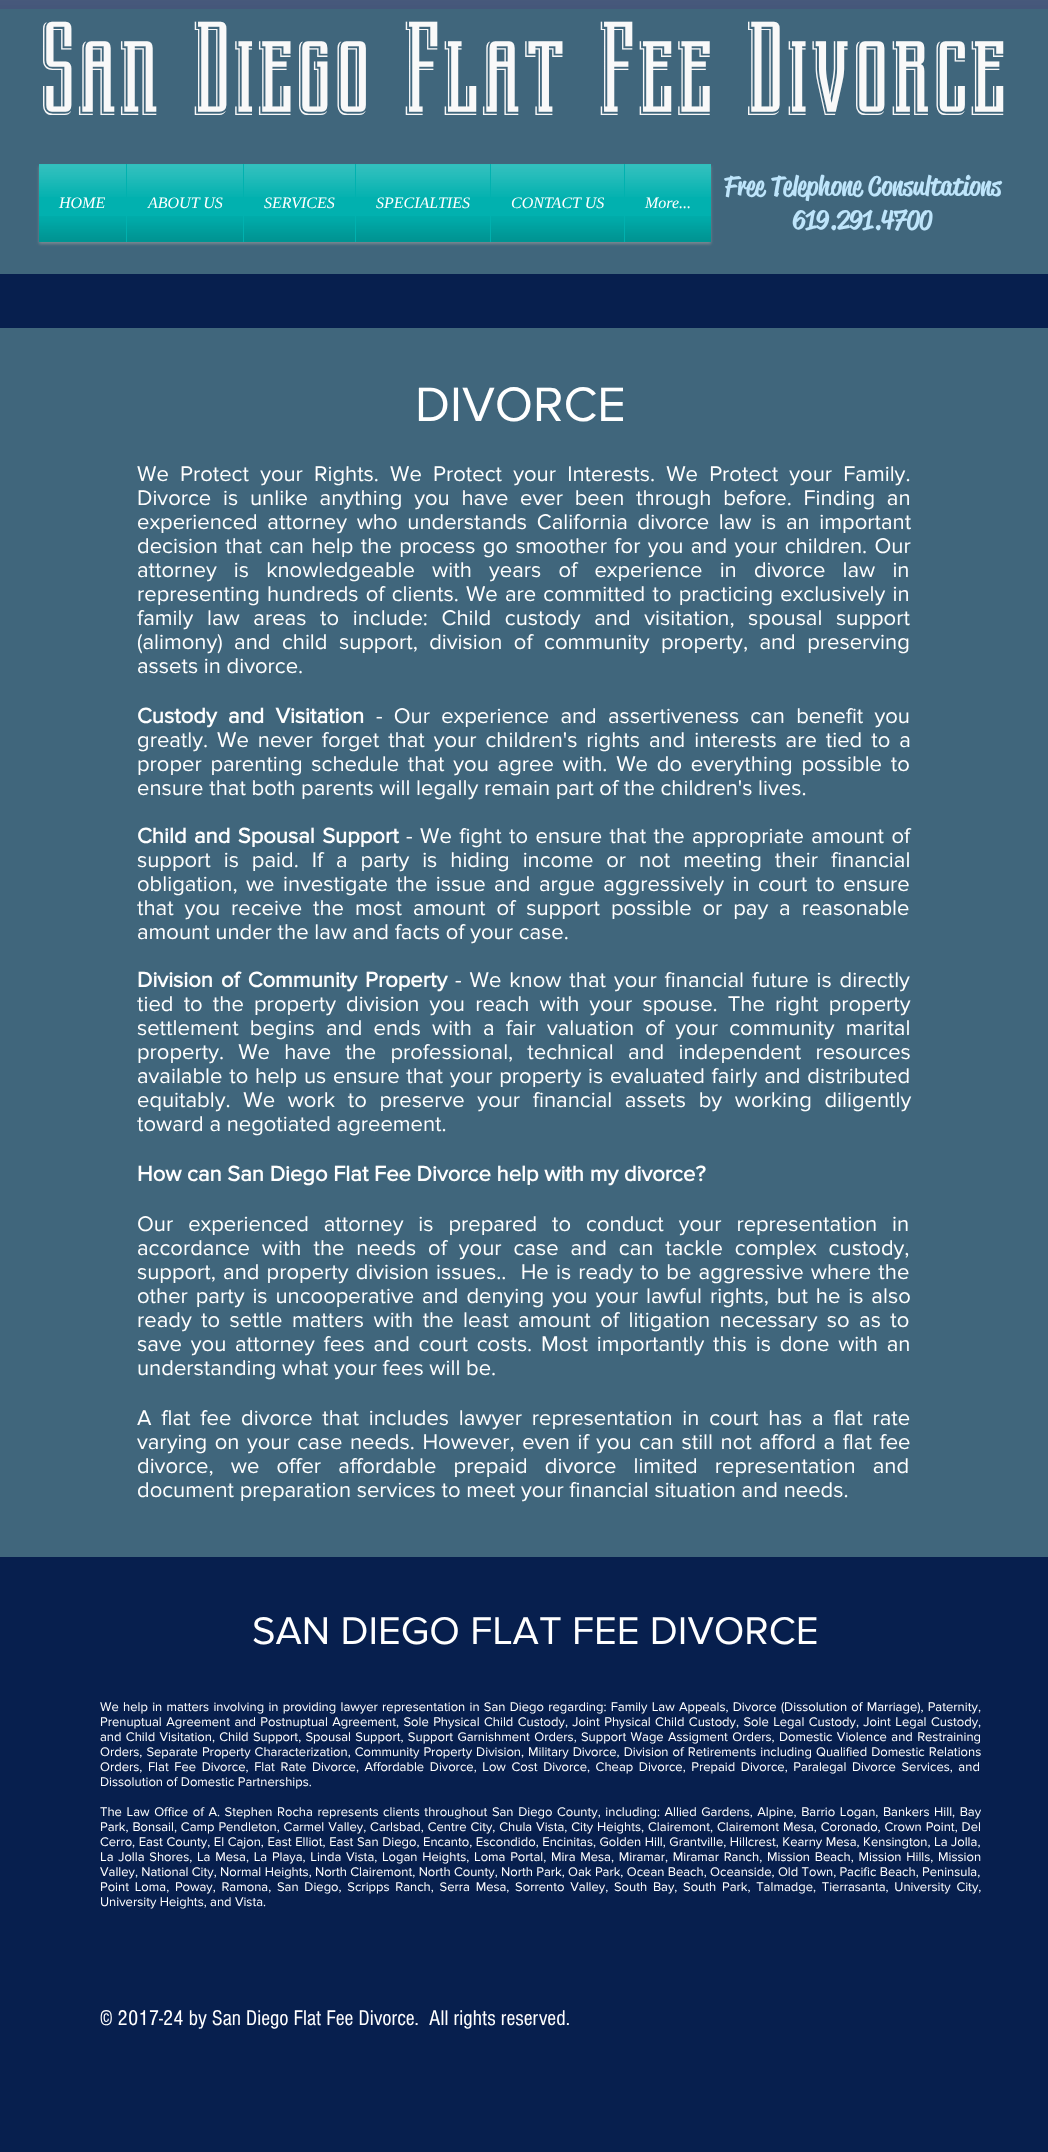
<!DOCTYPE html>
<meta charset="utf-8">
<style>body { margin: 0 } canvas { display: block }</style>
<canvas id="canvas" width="1048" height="2152"></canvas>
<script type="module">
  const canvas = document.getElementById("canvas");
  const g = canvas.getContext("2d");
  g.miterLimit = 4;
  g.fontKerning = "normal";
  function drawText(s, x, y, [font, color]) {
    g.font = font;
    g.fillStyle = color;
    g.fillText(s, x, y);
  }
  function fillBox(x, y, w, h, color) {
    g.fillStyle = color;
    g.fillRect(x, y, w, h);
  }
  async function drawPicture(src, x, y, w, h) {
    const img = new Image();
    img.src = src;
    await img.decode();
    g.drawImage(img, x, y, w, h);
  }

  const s1 = ["112px 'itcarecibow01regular'", "#F9F9F9"];
  const s2 = ["italic 16px Liberation Serif", "#FFFFFF"];
  const s3 = ["500 27px 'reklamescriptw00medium'", "#BEE5FB"];
  const s4 = ["50px 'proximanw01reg'", "#FFFFFF"];
  const s5 = ["22px 'proximanw01reg'", "#FFFFFF"];
  const s6 = ["bold 22px 'proximanw01reg'", "#FFFFFF"];
  const s7 = ["40px 'proximanw01reg'", "#FFFFFF"];
  const s8 = ["13px 'proximanw01reg'", "#FFFFFF"];
  const s9 = ["22px 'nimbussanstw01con'", "#FFFFFF"];

  fillBox(0, 0, 1048, 2152, "#071F4E");
  await drawPicture("pic1.png", 0, 0, 1048, 9);
  fillBox(0, 9, 1048, 265, "#40667C");
  drawText("San Diego Flat Fee Divorce", 39, 115, s1);
  g.fillStyle = "rgba(162, 158, 158, 0.6)";
  g.filter = "blur(1.5px)";
  g.beginPath();
  g.rect(39, 166, 672, 78);
  g.fill();
  g.filter = "none";
  fillBox(39, 164, 672, 78, "#01B1AF");
  await drawPicture("pic2.png", 39, 164, 87, 33);
  await drawPicture("pic3.png", 39, 216, 87, 26);
  drawText("HOME", 59, 208, s2);
  await drawPicture("pic4.png", 127, 164, 116, 33);
  await drawPicture("pic5.png", 127, 216, 116, 26);
  drawText("ABOUT US", 148, 208, s2);
  await drawPicture("pic6.png", 244, 164, 111, 33);
  await drawPicture("pic7.png", 244, 216, 111, 26);
  drawText("SERVICES", 264, 208, s2);
  await drawPicture("pic8.png", 356, 164, 134, 33);
  await drawPicture("pic9.png", 356, 216, 134, 26);
  drawText("SPECIALTIES", 376, 208, s2);
  await drawPicture("pic10.png", 491, 164, 133, 33);
  await drawPicture("pic11.png", 491, 216, 133, 26);
  drawText("CONTACT US", 511, 208, s2);
  await drawPicture("pic12.png", 625, 164, 86, 33);
  await drawPicture("pic13.png", 625, 216, 86, 26);
  drawText("More...", 645, 208, s2);
  drawText("Free Telephone Consultations", 724, 195, s3);
  drawText("619.291.4700", 793, 229, s3);
  fillBox(0, 328, 1048, 1229, "#40667C");
  drawText("DIVORCE", 415, 421, s4);
  g.wordSpacing = "5.5px";
  drawText("We Protect your Rights. We Protect your Interests. We Protect your Family.", 137, 481, s5);
  g.wordSpacing = "6.1px";
  drawText("Divorce is unlike anything you have ever been through before. Finding an", 137, 505, s5);
  g.wordSpacing = "4px";
  drawText("experienced attorney who understands California divorce law is an important", 137, 529, s5);
  g.wordSpacing = "1.75px";
  drawText("decision that can help the process go smoother for you and your children. Our", 137, 553, s5);
  g.wordSpacing = "11.5px";
  drawText("attorney is knowledgeable with years of experience in divorce law in", 137, 577, s5);
  g.wordSpacing = "1.5px";
  drawText("representing hundreds of clients. We are committed to practicing exclusively in", 137, 601, s5);
  g.wordSpacing = "8px";
  drawText("family law areas to include: Child custody and visitation, spousal support", 137, 625, s5);
  g.wordSpacing = "5.75px";
  drawText("(alimony) and child support, division of community property, and preserving", 137, 649, s5);
  g.wordSpacing = "0px";
  drawText("assets in divorce.", 137, 673, s5);
  g.wordSpacing = "5.5px";
  drawText("Custody and Visitation", 137, 723, s6);
  drawText("- Our experience and assertiveness can benefit you", 376, 723, s5);
  g.wordSpacing = "3.25px";
  drawText("greatly. We never forget that your children's rights and interests are tied to a", 137, 747, s5);
  g.wordSpacing = "3.1px";
  drawText("proper parenting schedule that you agree with. We do everything possible to", 137, 771, s5);
  g.wordSpacing = "0px";
  drawText("ensure that both parents will legally remain part of the children's lives.", 137, 795, s5);
  g.wordSpacing = "1.75px";
  drawText("Child and Spousal Support", 137, 843, s6);
  drawText("- We fight to ensure that the appropriate amount of", 406, 843, s5);
  g.wordSpacing = "7.25px";
  drawText("support is paid. If a party is hiding income or not meeting their financial", 137, 867, s5);
  g.wordSpacing = "2.75px";
  drawText("obligation, we investigate the issue and argue aggressively in court to ensure", 137, 891, s5);
  g.wordSpacing = "5.25px";
  drawText("that you receive the most amount of support possible or pay a reasonable", 137, 915, s5);
  g.wordSpacing = "0px";
  drawText("amount under the law and facts of your case.", 137, 939, s5);
  g.wordSpacing = "2.25px";
  drawText("Division of Community Property", 137, 987, s6);
  drawText("- We know that your financial future is directly", 455, 987, s5);
  g.wordSpacing = "4.5px";
  drawText("tied to the property division you reach with your spouse. The right property", 137, 1011, s5);
  g.wordSpacing = "5.5px";
  drawText("settlement begins and ends with a fair valuation of your community marital", 137, 1035, s5);
  g.wordSpacing = "8.5px";
  drawText("property. We have the professional, technical and independent resources", 137, 1059, s5);
  g.wordSpacing = "1.1px";
  drawText("available to help us ensure that your property is evaluated fairly and distributed", 137, 1083, s5);
  g.wordSpacing = "7px";
  drawText("equitably. We work to preserve your financial assets by working diligently", 137, 1107, s5);
  g.wordSpacing = "0px";
  drawText("toward a negotiated agreement.", 137, 1131, s5);
  drawText("How can San Diego Flat Fee Divorce help with my divorce?", 137, 1181, s6);
  g.wordSpacing = "9.25px";
  drawText("Our experienced attorney is prepared to conduct your representation in", 137, 1231, s5);
  g.wordSpacing = "6.25px";
  drawText("accordance with the needs of your case and can tackle complex custody,", 137, 1255, s5);
  g.wordSpacing = "1.5px";
  drawText("support, and property division issues..  He is ready to be aggressive where the", 137, 1279, s5);
  g.wordSpacing = "2.25px";
  drawText("other party is uncooperative and denying you your lawful rights, but he is also", 137, 1303, s5);
  g.wordSpacing = "3.75px";
  drawText("ready to settle matters with the least amount of litigation necessary so as to", 137, 1327, s5);
  g.wordSpacing = "3.1px";
  drawText("save you attorney fees and court costs. Most importantly this is done with an", 137, 1351, s5);
  g.wordSpacing = "0px";
  drawText("understanding what your fees will be.", 137, 1375, s5);
  g.wordSpacing = "4.1px";
  drawText("A flat fee divorce that includes lawyer representation in court has a flat rate", 137, 1425, s5);
  g.wordSpacing = "1.9px";
  drawText("varying on your case needs. However, even if you can still not afford a flat fee", 137, 1449, s5);
  g.wordSpacing = "11.5px";
  drawText("divorce, we offer affordable prepaid divorce limited representation and", 137, 1473, s5);
  g.wordSpacing = "0px";
  drawText("document preparation services to meet your financial situation and needs.", 137, 1497, s5);
  drawText("SAN DIEGO FLAT FEE DIVORCE", 252, 1644, s7);
  g.wordSpacing = "0.9px";
  drawText("We help in matters involving in providing lawyer representation in San Diego regarding: Family Law Appeals, Divorce (Dissolution of Marriage), Paternity,", 100, 1711, s8);
  g.wordSpacing = "1.1px";
  drawText("Prenuptual Agreement and Postnuptual Agreement, Sole Physical Child Custody, Joint Physical Child Custody, Sole Legal Custody, Joint Legal Custody,", 100, 1726, s8);
  g.wordSpacing = "1px";
  drawText("and Child Visitation, Child Support, Spousal Support, Support Garnishment Orders, Support Wage Assigment Orders, Domestic Violence and Restraining", 100, 1741, s8);
  g.wordSpacing = "0.7px";
  drawText("Orders, Separate Property Characterization, Community Property Division, Military Divorce, Division of Retirements including Qualified Domestic Relations", 100, 1756, s8);
  g.wordSpacing = "2.25px";
  drawText("Orders, Flat Fee Divorce, Flat Rate Divorce, Affordable Divorce, Low Cost Divorce, Cheap Divorce, Prepaid Divorce, Paralegal Divorce Services, and", 100, 1771, s8);
  g.wordSpacing = "0px";
  drawText("Dissolution of Domestic Partnerships.", 100, 1786, s8);
  g.wordSpacing = "1.25px";
  drawText("The Law Office of A. Stephen Rocha represents clients throughout San Diego County, including: Allied Gardens, Alpine, Barrio Logan, Bankers Hill, Bay", 100, 1816, s8);
  g.wordSpacing = "0.6px";
  drawText("Park, Bonsail, Camp Pendleton, Carmel Valley, Carlsbad, Centre City, Chula Vista, City Heights, Clairemont, Clairemont Mesa, Coronado, Crown Point, Del", 100, 1831, s8);
  g.wordSpacing = "0.25px";
  drawText("Cerro, East County, El Cajon, East Elliot, East San Diego, Encanto, Escondido, Encinitas, Golden Hill, Grantville, Hillcrest, Kearny Mesa, Kensington, La Jolla,", 100, 1846, s8);
  g.wordSpacing = "1.4px";
  drawText("La Jolla Shores, La Mesa, La Playa, Linda Vista, Logan Heights, Loma Portal, Mira Mesa, Miramar, Miramar Ranch, Mission Beach, Mission Hills, Mission", 100, 1861, s8);
  g.wordSpacing = "0px";
  drawText("Valley, National City, Normal Heights, North Clairemont, North County, North Park, Oak Park, Ocean Beach, Oceanside, Old Town, Pacific Beach, Peninsula,", 100, 1876, s8);
  g.wordSpacing = "2.4px";
  drawText("Point Loma, Poway, Ramona, San Diego, Scripps Ranch, Serra Mesa, Sorrento Valley, South Bay, South Park, Talmadge, Tierrasanta, University City,", 100, 1891, s8);
  g.wordSpacing = "0px";
  drawText("University Heights, and Vista.", 100, 1906, s8);
  drawText("© 2017-24 by San Diego Flat Fee Divorce.  All rights reserved.", 100, 2025, s9);
</script>
